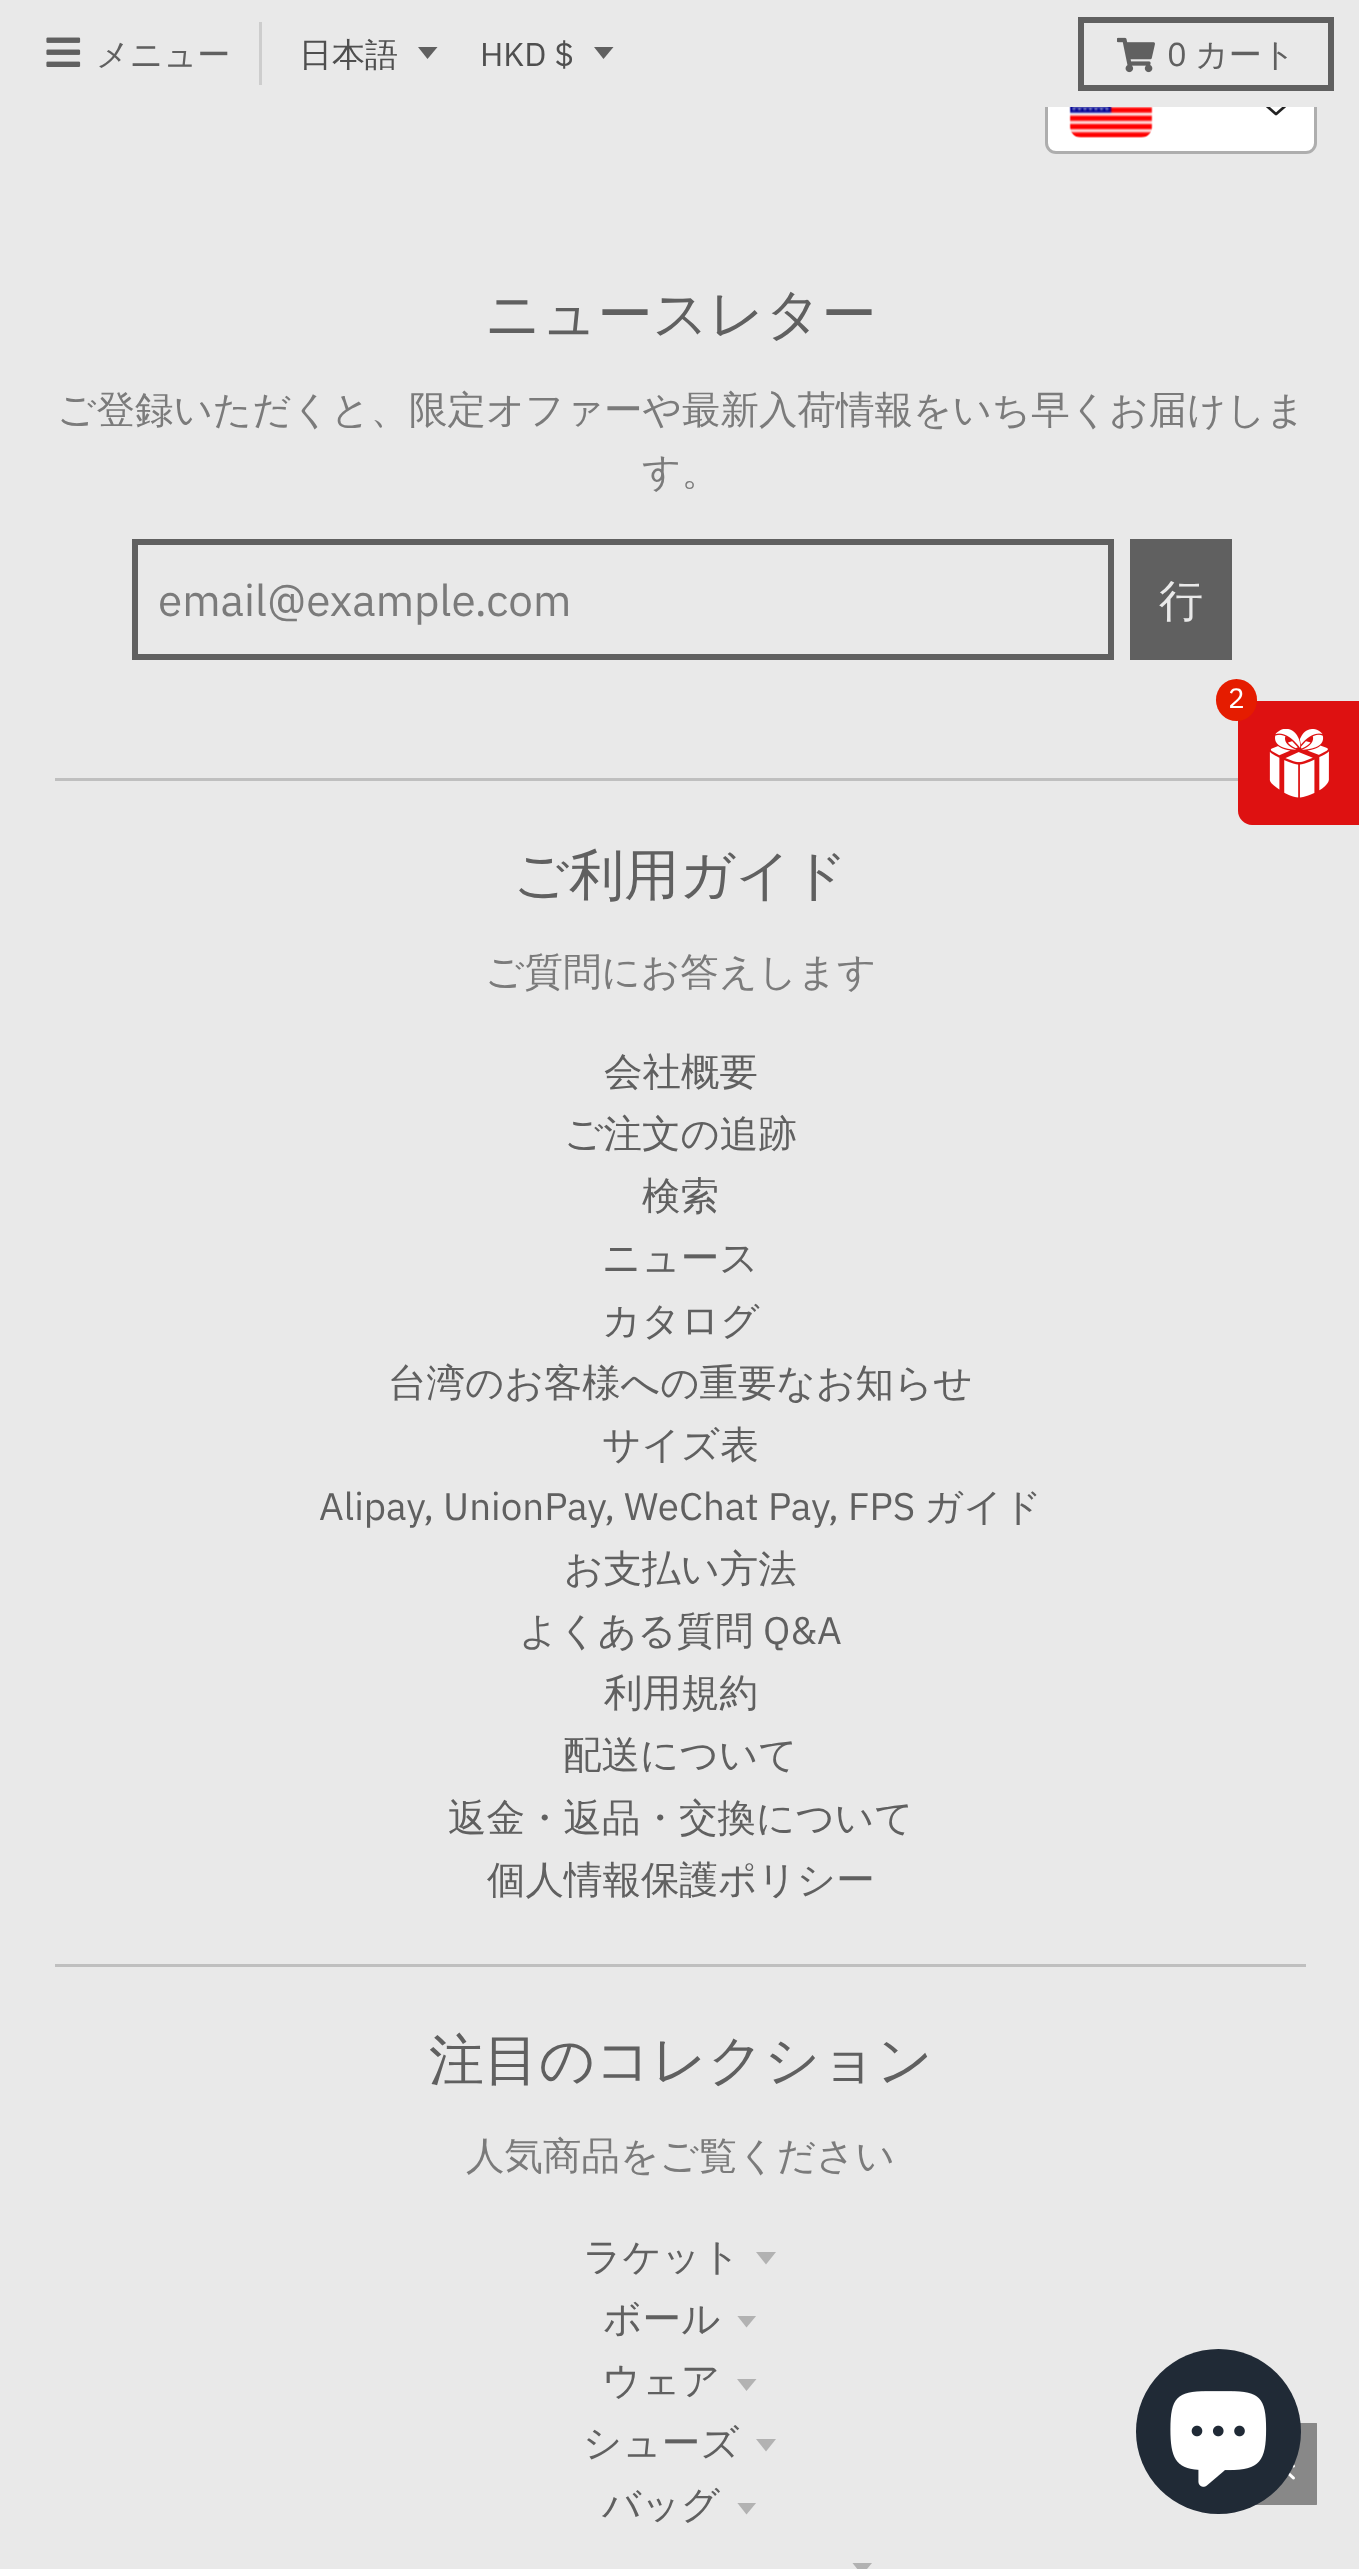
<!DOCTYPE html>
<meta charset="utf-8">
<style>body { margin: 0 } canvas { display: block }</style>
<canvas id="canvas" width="1359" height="2569"></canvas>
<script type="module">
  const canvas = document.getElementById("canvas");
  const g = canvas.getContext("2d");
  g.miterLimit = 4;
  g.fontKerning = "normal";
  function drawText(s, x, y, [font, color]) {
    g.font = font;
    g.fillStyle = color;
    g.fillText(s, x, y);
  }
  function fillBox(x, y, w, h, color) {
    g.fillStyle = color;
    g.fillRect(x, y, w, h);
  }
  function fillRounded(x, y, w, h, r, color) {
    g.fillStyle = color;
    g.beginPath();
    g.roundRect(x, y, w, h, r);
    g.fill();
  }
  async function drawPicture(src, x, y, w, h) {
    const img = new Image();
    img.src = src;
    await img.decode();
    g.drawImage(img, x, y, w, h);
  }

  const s1 = ["500 33px WenQuanYi Zen Hei", "#606060"];
  const s2 = ["500 33px WenQuanYi Zen Hei", "#4F4F4F"];
  const s3 = ["33px IBM Plex Sans", "#4F4F4F"];
  const s4 = ["33px IBM Plex Sans", "#606060"];
  const s5 = ["500 55px WenQuanYi Zen Hei", "#606060"];
  const s6 = ["500 38.5px WenQuanYi Zen Hei", "#7B7B7B"];
  const s7 = ["44px IBM Plex Sans", "#7B7B7B"];
  const s8 = ["500 44px WenQuanYi Zen Hei", "#E9E9E9"];
  const s9 = ["500 38.5px WenQuanYi Zen Hei", "#606060"];
  const s10 = ["38.5px IBM Plex Sans", "#606060"];
  const s11 = ["28px IBM Plex Sans", "#FFFFFF"];

  fillBox(0, 0, 1359, 2569, "#E9E9E9");
  g.fillStyle = "#FFFFFF";
  g.beginPath();
  g.roundRect(1046.5, 67.5, 269, 85, 9.5);
  g.fill();
  g.strokeStyle = "#AEAEAE";
  g.lineWidth = 3;
  g.stroke();
  fillBox(1045, 66, 272, 41, "#E9E9E9");
  await drawPicture("pic1.png", 46, 37, 35, 30);
  drawText("メニュー", 96, 66, s1);
  fillBox(259, 22, 3, 63, "#CDCDCD");
  g.fillStyle = "#606060";
  g.beginPath();
  g.moveTo(418, 47);
  g.lineTo(427.5, 59);
  g.lineTo(437.5, 47);
  g.closePath();
  g.fill();
  drawText("日本語", 299, 66, s2);
  g.fillStyle = "#606060";
  g.beginPath();
  g.moveTo(594, 47);
  g.lineTo(603.5, 59);
  g.lineTo(613.5, 47);
  g.closePath();
  g.fill();
  drawText("HKD $", 480, 66, s3);
  g.strokeStyle = "#606060";
  g.lineWidth = 6;
  g.strokeRect(1081, 20, 250, 68);
  await drawPicture("pic2.png", 1117, 37, 38, 36);
  drawText("0", 1167, 66, s4);
  drawText("カート", 1195, 66, s1);
  drawText("ニュースレター", 485, 333, s5);
  drawText("ご登録いただくと、限定オファーや最新入荷情報をいち早くお届けしま", 57, 423, s6);
  drawText("す。", 642, 485, s6);
  fillBox(55, 778, 1183, 3, "#BFBFBF");
  g.strokeRect(135, 542, 976, 115);
  drawText("email@example.com", 158, 616, s7);
  fillBox(1130, 539, 102, 121, "#606060");
  drawText("行", 1159, 616, s8);
  drawText("ご利用ガイド", 513, 894, s5);
  drawText("ご質問にお答えします", 485, 985, s6);
  fillBox(55, 1964, 1251, 3, "#BFBFBF");
  drawText("会社概要", 604, 1085, s9);
  drawText("ご注文の追跡", 564, 1147, s9);
  drawText("検索", 642, 1209, s9);
  drawText("ニュース", 602, 1271, s9);
  drawText("カタログ", 602, 1334, s9);
  drawText("台湾のお客様への重要なお知らせ", 388, 1396, s9);
  drawText("サイズ表", 602, 1458, s9);
  drawText("Alipay, UnionPay, WeChat Pay, FPS", 319, 1520, s10);
  drawText("ガイド", 924, 1520, s9);
  drawText("お支払い方法", 564, 1582, s9);
  drawText("よくある質問", 519, 1644, s9);
  drawText("Q&A", 763, 1644, s10);
  drawText("利用規約", 604, 1706, s9);
  drawText("配送について", 563, 1768, s9);
  drawText("返金・返品・交換について", 448, 1831, s9);
  drawText("個人情報保護ポリシー", 487, 1893, s9);
  drawText("注目のコレクション", 429, 2079, s5);
  drawText("人気商品をご覧ください", 466, 2169, s6);
  drawText("ラケット", 583, 2270, s9);
  g.fillStyle = "#B2B2B2";
  g.beginPath();
  g.moveTo(756, 2252);
  g.lineTo(766, 2264.5);
  g.lineTo(776, 2252);
  g.closePath();
  g.fill();
  drawText("ボール", 603, 2332, s9);
  g.save();
  g.beginPath();
  g.rect(737, 2316, 22, 13);
  g.clip();
  g.fillStyle = "#B2B2B2";
  g.beginPath();
  g.moveTo(737, 2315.5);
  g.lineTo(746.5, 2327.5);
  g.lineTo(756.5, 2315.5);
  g.closePath();
  g.fill();
  g.restore();
  drawText("ウェア", 602, 2394, s9);
  g.fillStyle = "#B2B2B2";
  g.beginPath();
  g.moveTo(737, 2379);
  g.lineTo(746.5, 2391);
  g.lineTo(756.5, 2379);
  g.closePath();
  g.fill();
  drawText("シューズ", 583, 2456, s9);
  g.fillStyle = "#B2B2B2";
  g.beginPath();
  g.moveTo(756, 2439);
  g.lineTo(766, 2451.5);
  g.lineTo(776, 2439);
  g.closePath();
  g.fill();
  drawText("バッグ", 602, 2518, s9);
  g.save();
  g.beginPath();
  g.rect(737, 2503, 22, 13);
  g.clip();
  g.fillStyle = "#B2B2B2";
  g.beginPath();
  g.moveTo(737, 2502.5);
  g.lineTo(746.5, 2514.5);
  g.lineTo(756.5, 2502.5);
  g.closePath();
  g.fill();
  g.restore();
  g.fillStyle = "#B2B2B2";
  g.beginPath();
  g.moveTo(852.5, 2563);
  g.lineTo(862, 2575);
  g.lineTo(872, 2563);
  g.closePath();
  g.fill();
  await drawPicture("pic3.png", 1069, 107, 84, 31);
  await drawPicture("pic4.png", 1266, 107, 20, 9);
  g.fillStyle = "#DE1111";
  g.beginPath();
  g.moveTo(1252, 701);
  g.lineTo(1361, 701);
  g.lineTo(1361, 825);
  g.lineTo(1252, 825);
  g.bezierCurveTo(1244.5, 825, 1238, 818.5, 1238, 811);
  g.lineTo(1238, 715);
  g.bezierCurveTo(1238, 707.5, 1244.5, 701, 1252, 701);
  g.closePath();
  g.fill();
  fillRounded(1216, 679, 41, 42, 20.5, "#E51C00");
  drawText("2", 1228, 708, s11);
  await drawPicture("pic5.png", 1269, 729, 60, 69);
  await drawPicture("pic7.png", 1256, 2423, 61, 82);
  g.fillStyle = "#202A36";
  g.beginPath();
  g.arc(1218.5, 2431.5, 82.5, 0, Math.PI * 2);
  g.fill();
  await drawPicture("pic6.png", 1170, 2391, 97, 96);
</script>
